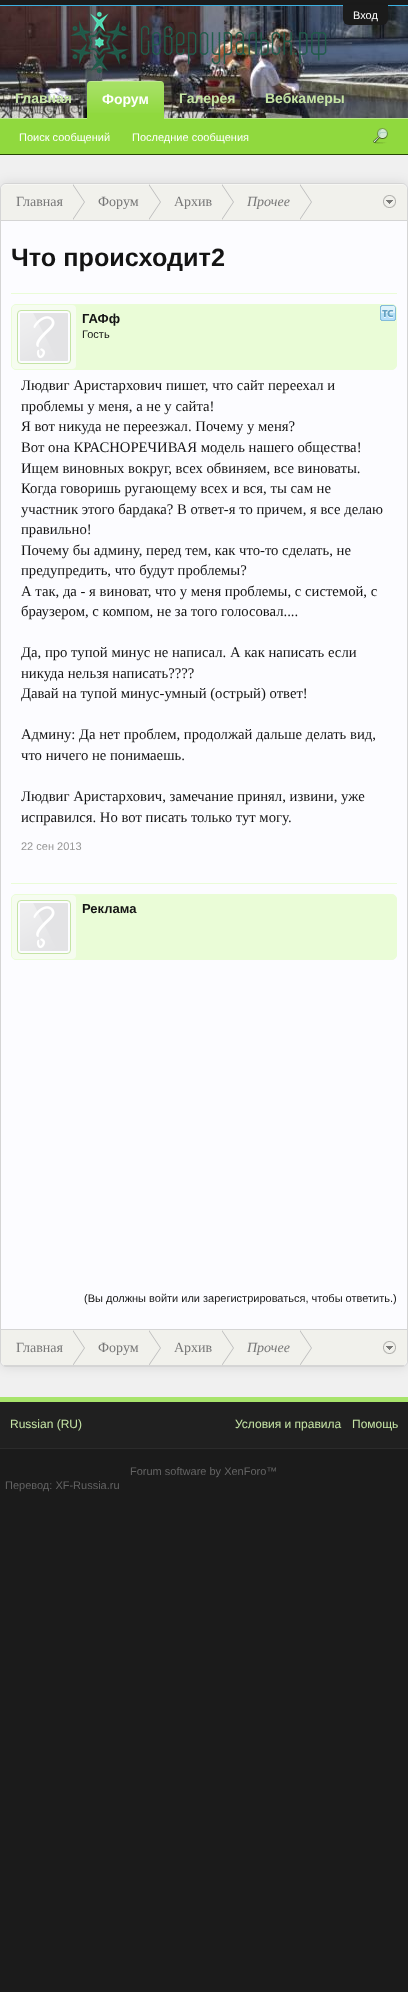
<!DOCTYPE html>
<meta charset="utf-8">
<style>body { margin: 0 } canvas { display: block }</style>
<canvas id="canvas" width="408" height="1992"></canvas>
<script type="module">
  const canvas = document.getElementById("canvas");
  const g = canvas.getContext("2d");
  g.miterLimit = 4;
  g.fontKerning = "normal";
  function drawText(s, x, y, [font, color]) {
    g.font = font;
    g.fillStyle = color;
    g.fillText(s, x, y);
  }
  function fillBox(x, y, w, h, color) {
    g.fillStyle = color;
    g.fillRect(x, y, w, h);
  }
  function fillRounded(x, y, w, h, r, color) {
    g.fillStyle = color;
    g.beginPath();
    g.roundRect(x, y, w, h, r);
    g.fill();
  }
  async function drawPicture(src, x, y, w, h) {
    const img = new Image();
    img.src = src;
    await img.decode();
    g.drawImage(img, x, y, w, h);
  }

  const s1 = ["11px Liberation Sans", "#FFFFFF"];
  const s2 = ["bold 14px Liberation Sans", "#C5E4A5"];
  const s3 = ["bold 14px Liberation Sans", "#FFFFFF"];
  const s4 = ["14px Liberation Serif", "#777777"];
  const s5 = ["italic 14px Liberation Serif", "#777777"];
  const s6 = ["bold 25.25px Liberation Sans", "#141414"];
  const s7 = ["bold 13px Liberation Sans", "#141414"];
  const s8 = ["11px Liberation Sans", "#141414"];
  const s9 = ["14.7px Liberation Serif", "#141414"];
  const s10 = ["11px Liberation Sans", "#969696"];
  const s11 = ["12px Liberation Sans", "#C5E4A5"];
  const s12 = ["11px Liberation Sans", "#646464"];

  fillBox(0, 0, 408, 1992, "#1B1B1B");
  fillBox(0, 155, 408, 1242, "#F0F0F0");
  fillBox(0, 5, 408, 1, "#3CB2E3");
  await drawPicture("pic1.png", 0, 6, 408, 112);
  g.fillStyle = "rgba(0, 0, 0, 0.2)";
  g.filter = "blur(2px)";
  g.beginPath();
  g.roundRect(343, 7, 45, 20, 6);
  g.fill();
  g.filter = "none";
  g.fillStyle = "#1B1B1B";
  g.beginPath();
  g.roundRect(343, 5, 45, 20, [0, 0, 6, 6]);
  g.fill();
  drawText("Вход", 353, 19, s1);
  await drawPicture("pic2.png", 70, 11, 257, 63);
  drawText("Главная", 15, 103, s2);
  drawText("Галерея", 179, 103, s2);
  drawText("Вебкамеры", 265, 103, s2);
  fillBox(0, 118, 408, 1, "#BDE88E");
  g.fillStyle = "#90D93E";
  g.beginPath();
  g.roundRect(87, 81, 77, 38, [4, 4, 0, 0]);
  g.fill();
  await drawPicture("pic3.png", 87, 81, 77, 32);
  drawText("Форум", 102, 104, s3);
  fillBox(0, 119, 408, 35, "#90D93E");
  fillBox(0, 154, 408, 1, "#254603");
  drawText("Поиск сообщений", 19, 141, s1);
  drawText("Последние сообщения", 132, 141, s1);
  await drawPicture("pic4.png", 373, 128, 15, 16);
  g.fillStyle = "rgba(0, 0, 0, 0.1)";
  g.filter = "blur(6px)";
  g.beginPath();
  g.roundRect(0, 183, 408, 1184, 6);
  g.fill();
  g.filter = "none";
  g.fillStyle = "#FCFCFF";
  g.beginPath();
  g.roundRect(0.5, 183.5, 407, 1183, 5.5);
  g.fill();
  g.strokeStyle = "#D5D5D5";
  g.stroke();
  g.fillStyle = "#F1F1EC";
  g.beginPath();
  g.roundRect(1, 184, 406, 37, [6, 6, 0, 0]);
  g.fill();
  await drawPicture("pic5.png", 5, 184, 398, 1);
  fillBox(1, 220, 406, 1, "#D5D5D5");
  drawText("Главная", 16, 206, s4);
  g.fillStyle = "#BEBEBE";
  g.beginPath();
  g.moveTo(73, 220);
  g.lineTo(73, 184);
  g.lineTo(85, 202);
  g.closePath();
  g.fill();
  g.fillStyle = "#F1F1EC";
  g.beginPath();
  g.moveTo(72, 220);
  g.lineTo(72, 184);
  g.lineTo(84, 202);
  g.closePath();
  g.fill();
  drawText("Форум", 98, 206, s4);
  g.fillStyle = "#BEBEBE";
  g.beginPath();
  g.moveTo(149, 220);
  g.lineTo(149, 184);
  g.lineTo(161, 202);
  g.closePath();
  g.fill();
  g.fillStyle = "#F1F1EC";
  g.beginPath();
  g.moveTo(148, 220);
  g.lineTo(148, 184);
  g.lineTo(160, 202);
  g.closePath();
  g.fill();
  drawText("Архив", 174, 206, s4);
  g.fillStyle = "#BEBEBE";
  g.beginPath();
  g.moveTo(222, 220);
  g.lineTo(222, 184);
  g.lineTo(234, 202);
  g.closePath();
  g.fill();
  g.fillStyle = "#F1F1EC";
  g.beginPath();
  g.moveTo(221, 220);
  g.lineTo(221, 184);
  g.lineTo(233, 202);
  g.closePath();
  g.fill();
  drawText("Прочее", 247, 206, s5);
  g.fillStyle = "#BEBEBE";
  g.beginPath();
  g.moveTo(300, 220);
  g.lineTo(300, 184);
  g.lineTo(312, 202);
  g.closePath();
  g.fill();
  g.fillStyle = "#F1F1EC";
  g.beginPath();
  g.moveTo(299, 220);
  g.lineTo(299, 184);
  g.lineTo(311, 202);
  g.closePath();
  g.fill();
  await drawPicture("pic6.png", 383, 195, 13, 13);
  drawText("Что происходит2", 11, 266, s6);
  fillBox(11, 293, 386, 1, "#EAFCD7");
  g.beginPath();
  g.roundRect(11.5, 304.5, 385, 65, 4.5);
  g.fill();
  g.strokeStyle = "#EAFCD7";
  g.stroke();
  fillRounded(12, 305, 64, 64, 4, "#F6FCF0");
  g.fillStyle = "#FCFCFF";
  g.beginPath();
  g.roundRect(17.5, 310.5, 53, 53, 3.5);
  g.fill();
  g.strokeStyle = "#C5E4A5";
  g.stroke();
  await drawPicture("pic7.png", 20, 313, 48, 48);
  drawText("ГАФф", 82, 323, s7);
  drawText("Гость", 82, 338, s8);
  await drawPicture("pic8.png", 380, 305, 16, 16);
  drawText("Людвиг Аристархович пишет, что сайт переехал и", 21, 390, s9);
  drawText("проблемы у меня, а не у сайта!", 21, 411, s9);
  drawText("Я вот никуда не переезжал. Почему у меня?", 21, 431, s9);
  drawText("Вот она КРАСНОРЕЧИВАЯ модель нашего общества!", 21, 452, s9);
  drawText("Ищем виновных вокруг, всех обвиняем, все виноваты.", 21, 473, s9);
  drawText("Когда говоришь ругающему всех и вся, ты сам не", 21, 493, s9);
  drawText("участник этого бардака? В ответ-я то причем, я все делаю", 21, 514, s9);
  drawText("правильно!", 21, 534, s9);
  drawText("Почему бы админу, перед тем, как что-то сделать, не", 21, 555, s9);
  drawText("предупредить, что будут проблемы?", 21, 575, s9);
  drawText("А так, да - я виноват, что у меня проблемы, с системой, с", 21, 596, s9);
  drawText("браузером, с компом, не за того голосовал....", 21, 616, s9);
  drawText("Да, про тупой минус не написал. А как написать если", 21, 657, s9);
  drawText("никуда нельзя написать????", 21, 678, s9);
  drawText("Давай на тупой минус-умный (острый) ответ!", 21, 698, s9);
  drawText("Админу: Да нет проблем, продолжай дальше делать вид,", 21, 739, s9);
  drawText("что ничего не понимаешь.", 21, 760, s9);
  drawText("Людвиг Аристархович, замечание принял, извини, уже", 21, 801, s9);
  drawText("исправился. Но вот писать только тут могу.", 21, 822, s9);
  drawText("22 сен 2013", 21, 850, s10);
  fillBox(11, 883, 386, 1, "#EAFCD7");
  g.beginPath();
  g.roundRect(11.5, 894.5, 385, 65, 4.5);
  g.fill();
  g.strokeStyle = "#EAFCD7";
  g.stroke();
  fillRounded(12, 895, 64, 64, 4, "#F6FCF0");
  g.fillStyle = "#FCFCFF";
  g.beginPath();
  g.roundRect(17.5, 900.5, 53, 53, 3.5);
  g.fill();
  g.strokeStyle = "#C5E4A5";
  g.stroke();
  await drawPicture("pic7.png", 20, 903, 48, 48);
  drawText("Реклама", 82, 913, s7);
  drawText("(Вы должны войти или зарегистрироваться, чтобы ответить.)", 84, 1302, s8);
  g.fillStyle = "#F1F1EC";
  g.beginPath();
  g.roundRect(1, 1329, 406, 37, [0, 0, 6, 6]);
  g.fill();
  fillBox(4, 1365, 400, 1, "#D5D5D5");
  fillBox(1, 1329, 406, 1, "#D5D5D5");
  drawText("Главная", 16, 1352, s4);
  g.fillStyle = "#BEBEBE";
  g.beginPath();
  g.moveTo(73.5, 1365);
  g.lineTo(85, 1348);
  g.lineTo(73, 1330);
  g.lineTo(73, 1365);
  g.closePath();
  g.fill();
  g.fillStyle = "#F1F1EC";
  g.beginPath();
  g.moveTo(72.5, 1365);
  g.lineTo(84, 1348);
  g.lineTo(72, 1330);
  g.lineTo(72, 1365);
  g.closePath();
  g.fill();
  drawText("Форум", 98, 1352, s4);
  g.fillStyle = "#BEBEBE";
  g.beginPath();
  g.moveTo(149.5, 1365);
  g.lineTo(161, 1348);
  g.lineTo(149, 1330);
  g.lineTo(149, 1365);
  g.closePath();
  g.fill();
  g.fillStyle = "#F1F1EC";
  g.beginPath();
  g.moveTo(148.5, 1365);
  g.lineTo(160, 1348);
  g.lineTo(148, 1330);
  g.lineTo(148, 1365);
  g.closePath();
  g.fill();
  drawText("Архив", 174, 1352, s4);
  g.fillStyle = "#BEBEBE";
  g.beginPath();
  g.moveTo(222.5, 1365);
  g.lineTo(234, 1348);
  g.lineTo(222, 1330);
  g.lineTo(222, 1365);
  g.closePath();
  g.fill();
  g.fillStyle = "#F1F1EC";
  g.beginPath();
  g.moveTo(221.5, 1365);
  g.lineTo(233, 1348);
  g.lineTo(221, 1330);
  g.lineTo(221, 1365);
  g.closePath();
  g.fill();
  drawText("Прочее", 247, 1352, s5);
  g.fillStyle = "#BEBEBE";
  g.beginPath();
  g.moveTo(300.5, 1365);
  g.lineTo(312, 1348);
  g.lineTo(300, 1330);
  g.lineTo(300, 1365);
  g.closePath();
  g.fill();
  g.fillStyle = "#F1F1EC";
  g.beginPath();
  g.moveTo(299.5, 1365);
  g.lineTo(311, 1348);
  g.lineTo(299, 1330);
  g.lineTo(299, 1365);
  g.closePath();
  g.fill();
  await drawPicture("pic6.png", 383, 1341, 13, 13);
  fillBox(0, 1402, 408, 46, "#202020");
  fillBox(0, 1397, 408, 5, "#A8E46C");
  fillBox(0, 1448, 408, 1, "#2B2B2B");
  drawText("Russian (RU)", 10, 1428, s11);
  drawText("Условия и правила", 235, 1428, s11);
  drawText("Помощь", 352, 1428, s11);
  drawText("Forum software by XenForo™", 130, 1475, s12);
  drawText("Перевод: XF-Russia.ru", 5, 1489, s12);
</script>
